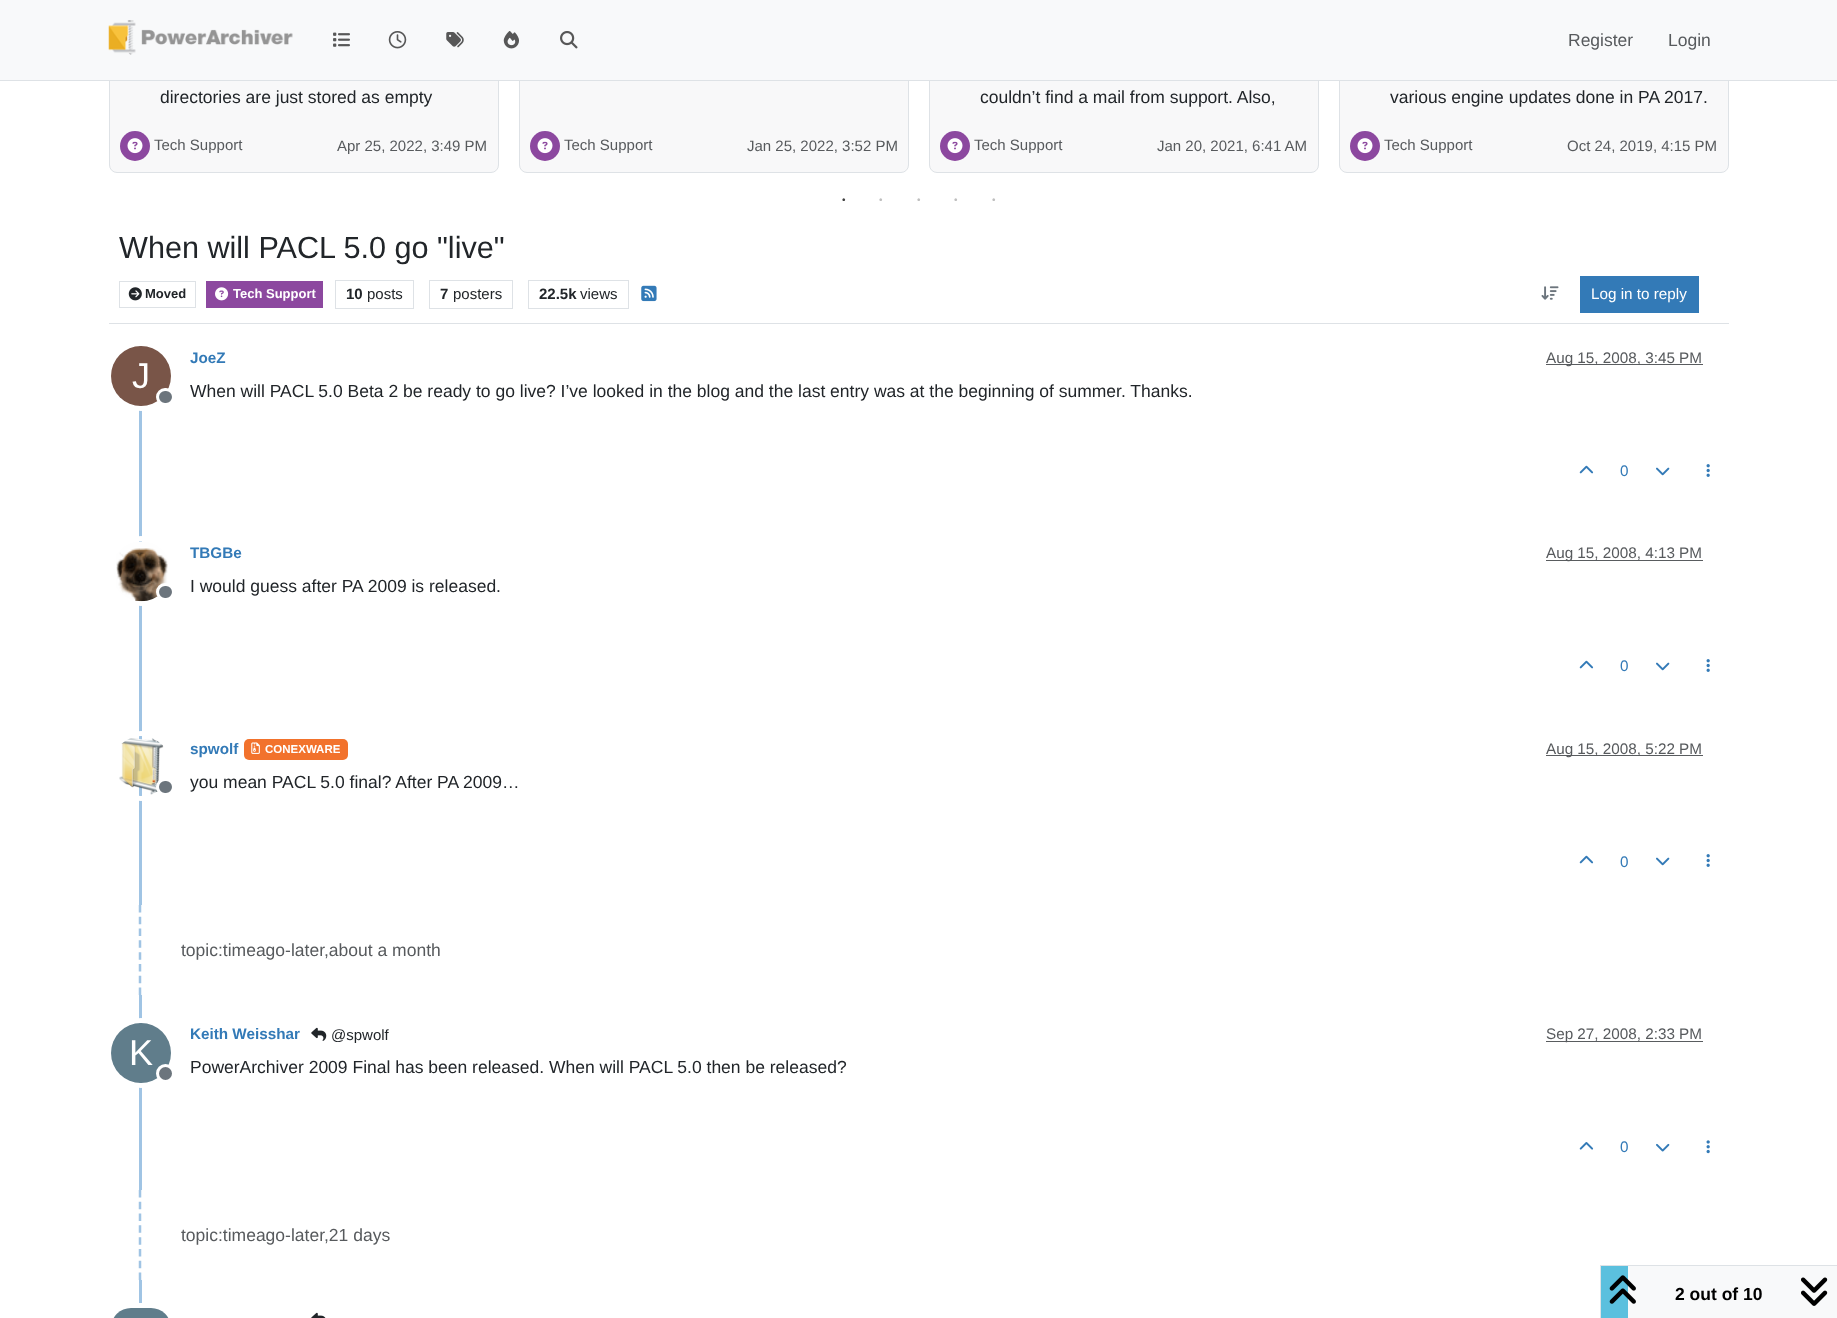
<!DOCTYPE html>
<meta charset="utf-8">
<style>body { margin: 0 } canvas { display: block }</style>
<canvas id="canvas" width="1837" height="1318"></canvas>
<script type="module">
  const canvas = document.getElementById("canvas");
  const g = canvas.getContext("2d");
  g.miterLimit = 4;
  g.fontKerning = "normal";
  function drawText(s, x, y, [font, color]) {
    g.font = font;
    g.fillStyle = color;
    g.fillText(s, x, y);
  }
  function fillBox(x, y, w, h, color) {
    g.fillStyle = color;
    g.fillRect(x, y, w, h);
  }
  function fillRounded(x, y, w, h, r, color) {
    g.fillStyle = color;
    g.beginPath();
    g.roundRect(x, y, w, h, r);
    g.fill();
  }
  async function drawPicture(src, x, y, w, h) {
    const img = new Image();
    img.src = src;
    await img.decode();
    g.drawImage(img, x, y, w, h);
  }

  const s1 = ["17.5px Liberation Sans", "#575A5D"];
  const s2 = ["17.5px Liberation Sans", "#212529"];
  const s3 = ["15px Liberation Sans", "#575A5D"];
  const s4 = ["10px Liberation Sans", "#404040"];
  const s5 = ["10px Liberation Sans", "#BFBFBF"];
  const s6 = ["30.6px Liberation Sans", "#212529"];
  const s7 = ["bold 13px Liberation Sans", "#212529"];
  const s8 = ["bold 13px Liberation Sans", "#FFFFFF"];
  const s9 = ["bold 15px Liberation Sans", "#212529"];
  const s10 = ["15px Liberation Sans", "#212529"];
  const s11 = ["15.25px Liberation Sans", "#FFFFFF"];
  const s12 = ["bold 15.25px Liberation Sans", "#337AB7"];
  const s13 = ["15.25px Liberation Sans", "#575A5D"];
  const s14 = ["36px Liberation Sans", "#FFFFFF"];
  const s15 = ["15.25px Liberation Sans", "#337AB7"];
  const s16 = ["bold 11.5px Liberation Sans", "#FFFFFF"];
  const s17 = ["bold 17.5px Liberation Sans", "#000000"];

  fillBox(0, 0, 1837, 1318, "#FFFFFF");
  g.fillStyle = "#F8F8F9";
  g.beginPath();
  g.roundRect(109.5, -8.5, 389, 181, 7.5);
  g.fill();
  g.strokeStyle = "#DEE2E6";
  g.stroke();
  g.beginPath();
  g.roundRect(519.5, -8.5, 389, 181, 7.5);
  g.fill();
  g.stroke();
  g.beginPath();
  g.roundRect(929.5, -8.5, 389, 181, 7.5);
  g.fill();
  g.stroke();
  g.beginPath();
  g.roundRect(1339.5, -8.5, 389, 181, 7.5);
  g.fill();
  g.stroke();
  fillBox(0, 0, 1837, 80, "#F8F9FA");
  fillBox(0, 80, 1837, 1, "#DEE2E6");
  await drawPicture("pic1.png", 108, 20, 185, 35);
  await drawPicture("pic2.png", 333, 32, 17, 15);
  await drawPicture("pic3.png", 388, 31, 19, 18);
  await drawPicture("pic4.png", 446, 32, 18, 16);
  await drawPicture("pic5.png", 503, 31, 16, 18);
  await drawPicture("pic6.png", 560, 31, 18, 18);
  drawText("Register", 1568, 46, s1);
  drawText("Login", 1668, 46, s1);
  drawText("directories are just stored as empty", 160, 103, s2);
  g.fillStyle = "#8C489F";
  g.beginPath();
  g.arc(135, 146, 15, 0, Math.PI * 2);
  g.fill();
  await drawPicture("pic7.png", 127, 138, 16, 16);
  drawText("Tech Support", 154, 150, s3);
  drawText("Apr 25, 2022, 3:49 PM", 337, 151, s3);
  g.fillStyle = "#8C489F";
  g.beginPath();
  g.arc(545, 146, 15, 0, Math.PI * 2);
  g.fill();
  await drawPicture("pic7.png", 537, 138, 16, 16);
  drawText("Tech Support", 564, 150, s3);
  drawText("Jan 25, 2022, 3:52 PM", 747, 151, s3);
  drawText("couldn’t find a mail from support. Also,", 980, 103, s2);
  g.fillStyle = "#8C489F";
  g.beginPath();
  g.arc(955, 146, 15, 0, Math.PI * 2);
  g.fill();
  await drawPicture("pic7.png", 947, 138, 16, 16);
  drawText("Tech Support", 974, 150, s3);
  drawText("Jan 20, 2021, 6:41 AM", 1157, 151, s3);
  drawText("various engine updates done in PA 2017.", 1390, 103, s2);
  g.fillStyle = "#8C489F";
  g.beginPath();
  g.arc(1365, 146, 15, 0, Math.PI * 2);
  g.fill();
  await drawPicture("pic7.png", 1357, 138, 16, 16);
  drawText("Tech Support", 1384, 150, s3);
  drawText("Oct 24, 2019, 4:15 PM", 1567, 151, s3);
  drawText("•", 842, 203, s4);
  drawText("•", 879, 203, s5);
  drawText("•", 917, 203, s5);
  drawText("•", 954, 203, s5);
  drawText("•", 992, 203, s5);
  fillBox(109, 323, 1620, 1, "#DEE2E6");
  drawText("When will PACL 5.0 go \"live\"", 119, 258, s6);
  g.strokeRect(119.5, 281.5, 76, 26);
  await drawPicture("pic8.png", 128, 287, 14, 14);
  drawText("Moved", 145, 298, s7);
  fillBox(206, 281, 117, 27, "#8C489F");
  await drawPicture("pic9.png", 215, 287, 14, 14);
  drawText("Tech Support", 233, 298, s8);
  g.strokeRect(335.5, 280.5, 78, 28);
  drawText("10", 346, 299, s9);
  drawText("posts", 367, 299, s10);
  g.strokeRect(429.5, 280.5, 83, 28);
  drawText("7", 440, 299, s9);
  drawText("posters", 453, 299, s10);
  g.strokeRect(528.5, 280.5, 100, 28);
  drawText("22.5k", 539, 299, s9);
  drawText("views", 580, 299, s10);
  await drawPicture("pic10.png", 641, 285, 16, 17);
  await drawPicture("pic11.png", 1541, 286, 18, 14);
  fillBox(1580, 276, 119, 37, "#337AB7");
  drawText("Log in to reply", 1591, 299, s11);
  fillBox(139, 344, 3, 561, "#A0C4E4");
  drawText("JoeZ", 190, 363, s12);
  fillBox(1546, 364, 157, 1, "#595C5F");
  drawText("Aug 15, 2008, 3:45 PM", 1546, 363, s13);
  g.beginPath();
  g.arc(141, 376, 32.5, 0, Math.PI * 2);
  g.strokeStyle = "#FFFFFF";
  g.lineWidth = 5;
  g.stroke();
  g.fillStyle = "#795548";
  g.beginPath();
  g.arc(141, 376, 30, 0, Math.PI * 2);
  g.fill();
  drawText("J", 132, 388, s14);
  g.fillStyle = "#6C757D";
  g.beginPath();
  g.roundRect(157.5, 389.5, 16, 15, 7.5);
  g.fill();
  g.lineWidth = 3;
  g.stroke();
  drawText("When will PACL 5.0 Beta 2 be ready to go live? I’ve looked in the blog and the last entry was at the beginning of summer. Thanks.", 190, 397, s2);
  await drawPicture("pic12.png", 1579, 465, 15, 9);
  drawText("0", 1620, 476, s15);
  await drawPicture("pic13.png", 1656, 467, 14, 9);
  await drawPicture("pic14.png", 1706, 464, 4, 13);
  g.beginPath();
  g.arc(141, 571, 32.5, 0, Math.PI * 2);
  g.lineWidth = 5;
  g.stroke();
  await drawPicture("pic15.png", 116, 541, 52, 61);
  g.fillStyle = "#6C757D";
  g.beginPath();
  g.roundRect(157.5, 584.5, 16, 15, 7.5);
  g.fill();
  g.lineWidth = 3;
  g.stroke();
  drawText("TBGBe", 190, 558, s12);
  fillBox(1546, 560, 157, 1, "#595C5F");
  drawText("Aug 15, 2008, 4:13 PM", 1546, 558, s13);
  drawText("I would guess after PA 2009 is released.", 190, 592, s2);
  await drawPicture("pic12.png", 1579, 660, 15, 9);
  drawText("0", 1620, 671, s15);
  await drawPicture("pic13.png", 1656, 662, 14, 9);
  await drawPicture("pic14.png", 1706, 659, 4, 13);
  g.beginPath();
  g.arc(141, 766, 32.5, 0, Math.PI * 2);
  g.lineWidth = 5;
  g.stroke();
  await drawPicture("pic16.png", 119, 738, 45, 57);
  g.fillStyle = "#6C757D";
  g.beginPath();
  g.roundRect(157.5, 779.5, 16, 15, 7.5);
  g.fill();
  g.lineWidth = 3;
  g.stroke();
  drawText("spwolf", 190, 754, s12);
  fillRounded(244, 739, 104, 21, 5, "#F2722C");
  await drawPicture("pic17.png", 251, 742, 9, 12);
  drawText("CONEXWARE", 265, 753, s16);
  fillBox(1546, 755, 157, 1, "#595C5F");
  drawText("Aug 15, 2008, 5:22 PM", 1546, 754, s13);
  drawText("you mean PACL 5.0 final? After PA 2009…", 190, 788, s2);
  await drawPicture("pic12.png", 1579, 855, 15, 9);
  drawText("0", 1620, 867, s15);
  await drawPicture("pic13.png", 1656, 857, 14, 9);
  await drawPicture("pic14.png", 1706, 854, 4, 13);
  g.beginPath();
  g.moveTo(140, 905);
  g.lineTo(140, 995);
  g.strokeStyle = "#A0C4E4";
  g.lineWidth = 2.5;
  g.setLineDash([7.5, 4.29]);
  g.stroke();
  drawText("topic:timeago-later,about a month", 181, 956, s1);
  fillBox(139, 995, 3, 195, "#A0C4E4");
  drawText("Keith Weisshar", 190, 1039, s12);
  await drawPicture("pic18.png", 311, 1027, 16, 14);
  drawText("@spwolf", 331, 1040, s10);
  fillBox(1546, 1041, 157, 1, "#595C5F");
  drawText("Sep 27, 2008, 2:33 PM", 1546, 1039, s13);
  g.beginPath();
  g.arc(141, 1053, 32.5, 0, Math.PI * 2);
  g.strokeStyle = "#FFFFFF";
  g.lineWidth = 5;
  g.setLineDash([]);
  g.stroke();
  g.fillStyle = "#607D8B";
  g.beginPath();
  g.arc(141, 1053, 30, 0, Math.PI * 2);
  g.fill();
  drawText("K", 129, 1065, s14);
  g.fillStyle = "#6C757D";
  g.beginPath();
  g.arc(165.5, 1073.5, 8, 0, Math.PI * 2);
  g.fill();
  g.lineWidth = 3;
  g.stroke();
  drawText("PowerArchiver 2009 Final has been released. When will PACL 5.0 then be released?", 190, 1073, s2);
  await drawPicture("pic19.png", 1579, 1142, 15, 8);
  drawText("0", 1620, 1152, s15);
  await drawPicture("pic20.png", 1656, 1143, 14, 9);
  await drawPicture("pic21.png", 1706, 1140, 4, 14);
  g.beginPath();
  g.moveTo(140, 1190);
  g.lineTo(140, 1280);
  g.strokeStyle = "#A0C4E4";
  g.lineWidth = 2.5;
  g.setLineDash([7.5, 4.29]);
  g.stroke();
  drawText("topic:timeago-later,21 days", 181, 1241, s1);
  fillBox(139, 1280, 3, 29, "#A0C4E4");
  g.beginPath();
  g.roundRect(108.5, 1305.5, 65, 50, 32.5);
  g.strokeStyle = "#FFFFFF";
  g.lineWidth = 5;
  g.setLineDash([]);
  g.stroke();
  fillRounded(111, 1308, 60, 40, 30, "#607D8B");
  await drawPicture("pic22.png", 311, 1312, 15, 6);
  fillBox(1628, 1266, 209, 52, "#F8F9FA");
  g.strokeStyle = "#DEE2E6";
  g.lineWidth = 1;
  g.strokeRect(1600.5, 1265.5, 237, 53);
  fillBox(1601, 1266, 27, 52, "#5BC0DE");
  await drawPicture("pic23.png", 1609, 1275, 27, 29);
  drawText("2 out of 10", 1675, 1300, s17);
  await drawPicture("pic24.png", 1801, 1277, 27, 29);
</script>
